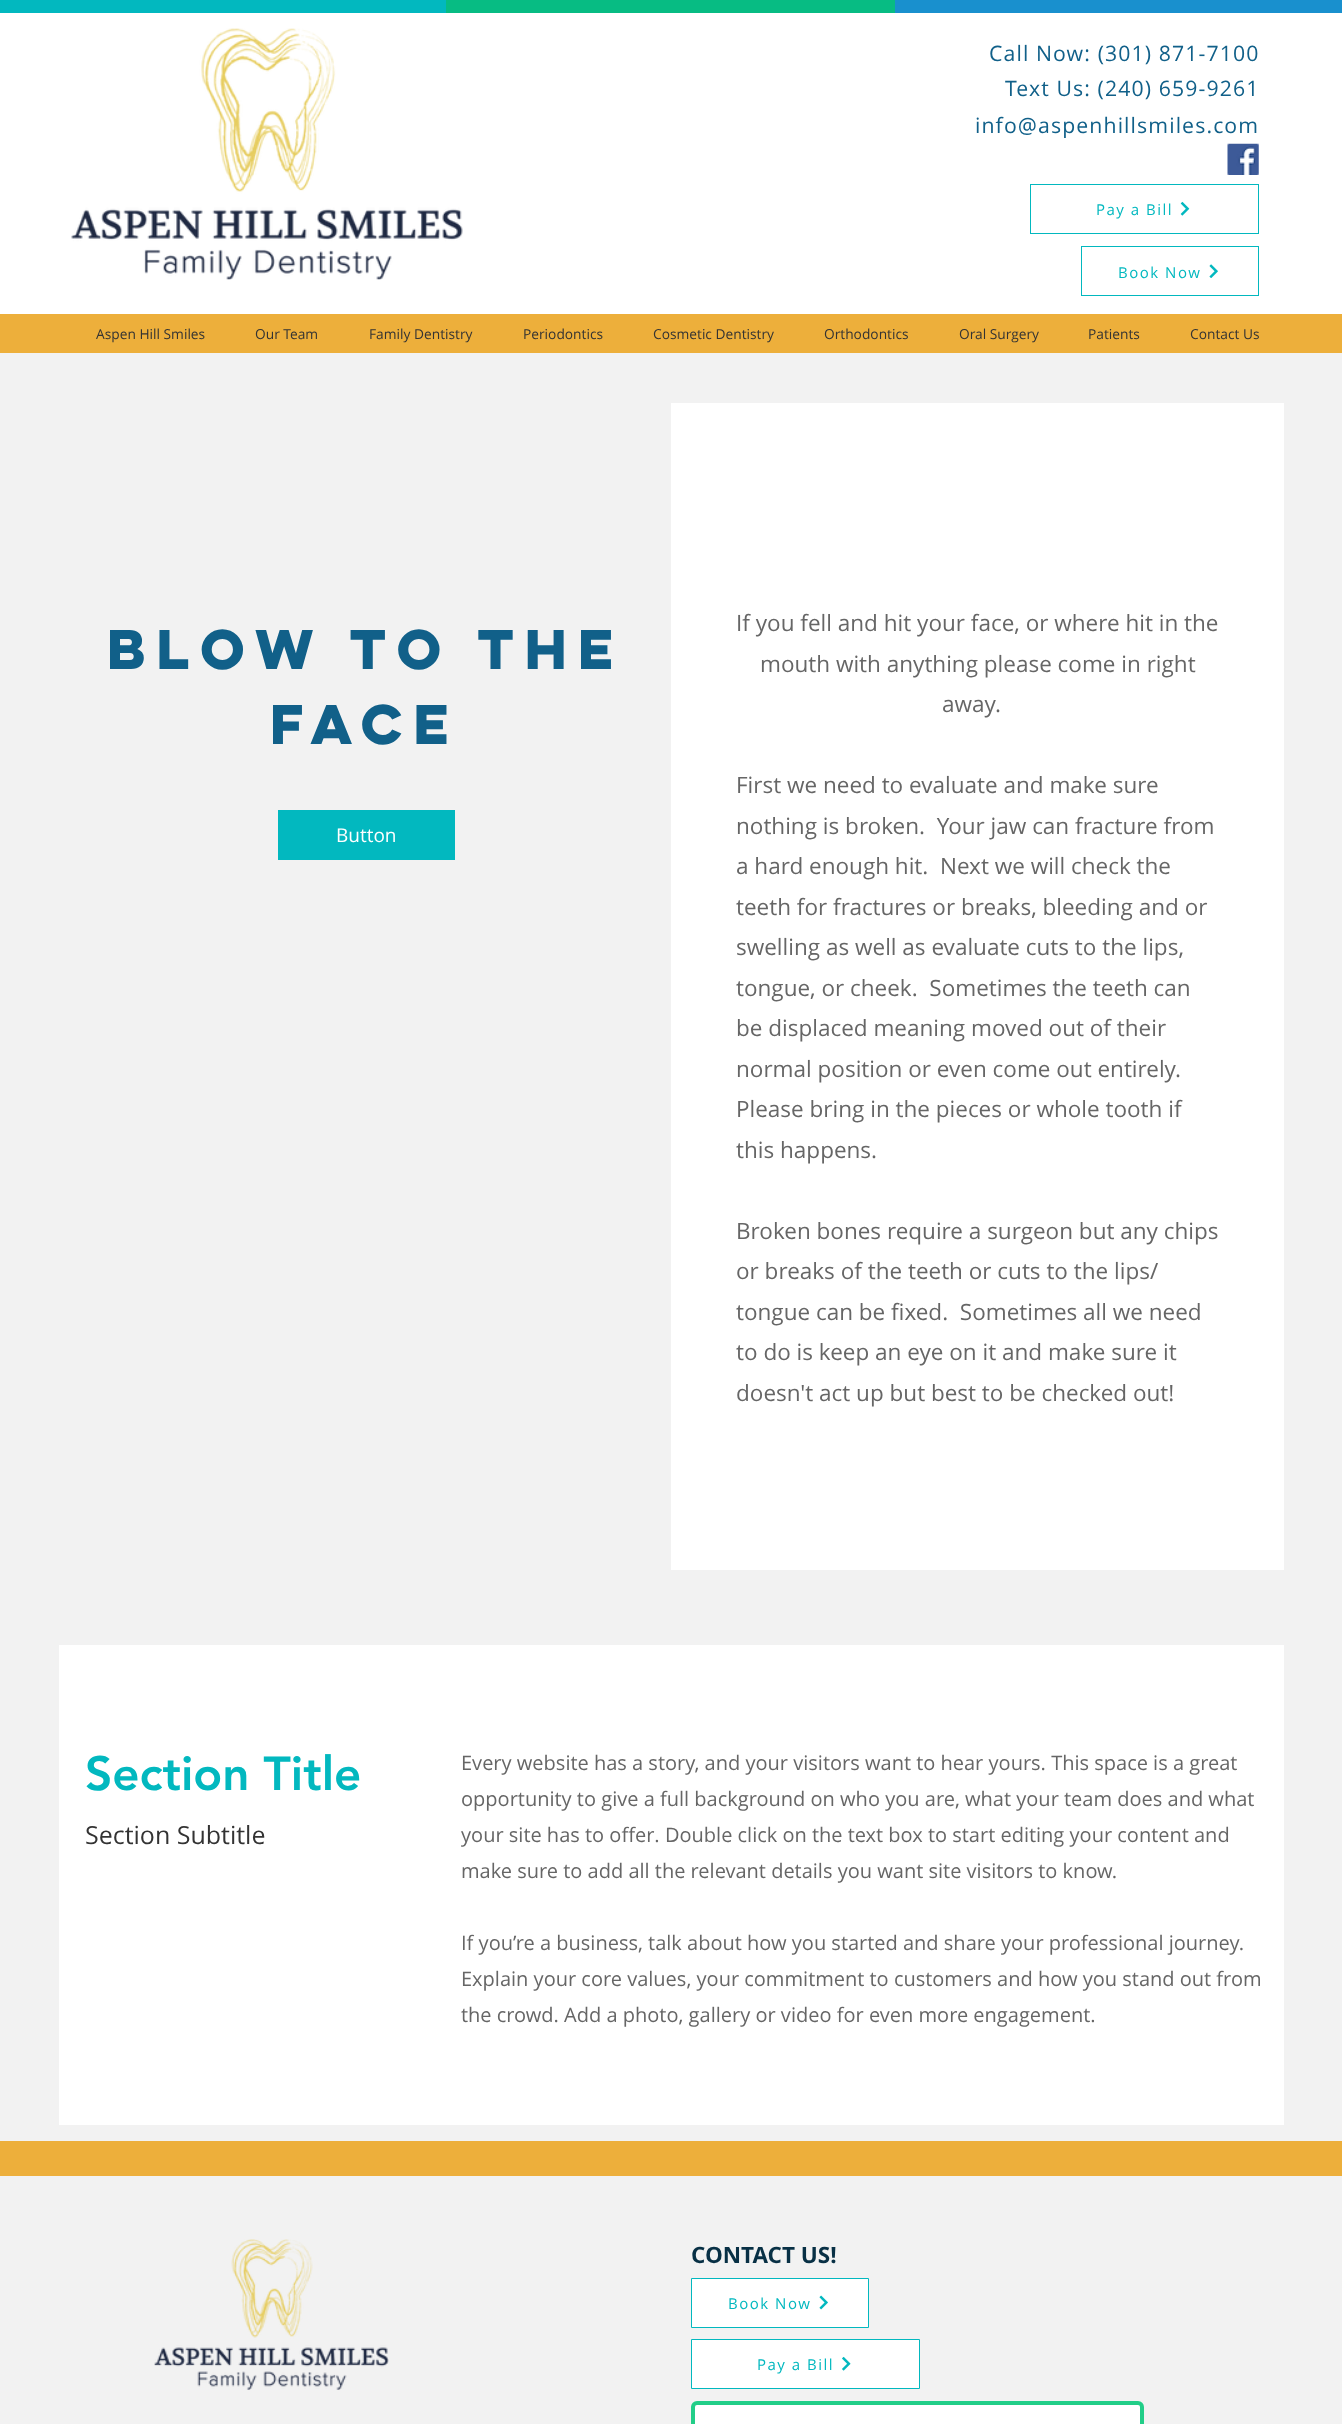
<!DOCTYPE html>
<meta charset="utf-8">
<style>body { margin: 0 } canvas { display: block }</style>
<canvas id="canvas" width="1342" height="2424"></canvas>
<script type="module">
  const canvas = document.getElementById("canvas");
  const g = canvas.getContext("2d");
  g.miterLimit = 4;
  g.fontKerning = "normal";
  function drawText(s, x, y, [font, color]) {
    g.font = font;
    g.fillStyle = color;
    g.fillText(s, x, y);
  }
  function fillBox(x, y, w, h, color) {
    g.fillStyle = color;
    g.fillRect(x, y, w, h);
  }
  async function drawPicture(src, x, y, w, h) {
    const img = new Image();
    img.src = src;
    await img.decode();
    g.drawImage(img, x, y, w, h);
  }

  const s1 = ["21.25px Open Sans", "#116089"];
  const s2 = ["15px Open Sans", "#02B8BF"];
  const s3 = ["13.75px Open Sans", "#333333"];
  const s4 = ["bold 50px 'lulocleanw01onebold'", "#116089"];
  const s5 = ["19px Open Sans", "#FFFFFF"];
  const s6 = ["22.5px Open Sans", "#666666"];
  const s7 = ["900 47.5px 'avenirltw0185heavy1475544'", "#02B8BF"];
  const s8 = ["20px Open Sans", "#666666"];
  const s9 = ["25px Open Sans", "#333333"];
  const s10 = ["bold 22.5px Open Sans", "#083045"];

  fillBox(0, 0, 1342, 2424, "#F2F2F2");
  fillBox(0, 13, 1342, 301, "#FFFFFF");
  fillBox(0, 0, 446, 13, "#02B8BF");
  fillBox(446, 0, 449, 13, "#07BC83");
  fillBox(895, 0, 447, 13, "#1990CE");
  await drawPicture("pic1.png", 71, 28, 392, 252);
  g.letterSpacing = "1.1px";
  drawText("Call Now: (301) 871-7100", 989, 61, s1);
  drawText("Text Us: (240) 659-9261", 1005, 96, s1);
  drawText("info@aspenhillsmiles.com", 975, 133, s1);
  await drawPicture("pic2.png", 1227, 143, 32, 32);
  g.strokeStyle = "#02B8BF";
  g.strokeRect(1030.5, 184.5, 228, 49);
  g.letterSpacing = "1.5px";
  drawText("Pay a Bill", 1096, 215, s2);
  await drawPicture("pic3.png", 1180, 201, 10, 15);
  g.strokeRect(1081.5, 246.5, 177, 49);
  drawText("Book Now", 1118, 278, s2);
  await drawPicture("pic4.png", 1209, 264, 9, 14);
  fillBox(0, 314, 1342, 39, "#EDAF3B");
  g.letterSpacing = "0px";
  drawText("Aspen Hill Smiles", 96, 339, s3);
  drawText("Our Team", 255, 339, s3);
  drawText("Family Dentistry", 369, 339, s3);
  drawText("Periodontics", 523, 339, s3);
  drawText("Cosmetic Dentistry", 653, 339, s3);
  drawText("Orthodontics", 824, 339, s3);
  drawText("Oral Surgery", 959, 339, s3);
  drawText("Patients", 1088, 339, s3);
  drawText("Contact Us", 1190, 339, s3);
  drawText("Blow to the", 107, 669, s4);
  drawText("face", 270, 744, s4);
  fillBox(278, 810, 177, 50, "#02B8BF");
  drawText("Button", 336, 842, s5);
  fillBox(671, 403, 613, 1167, "#FFFFFF");
  drawText("If you fell and hit your face, or where hit in the", 736, 631, s6);
  drawText("mouth with anything please come in right", 760, 672, s6);
  drawText("away.", 942, 712, s6);
  drawText("First we need to evaluate and make sure", 736, 793, s6);
  drawText("nothing is broken.  Your jaw can fracture from", 736, 834, s6);
  drawText("a hard enough hit.  Next we will check the", 736, 874, s6);
  drawText("teeth for fractures or breaks, bleeding and or", 736, 915, s6);
  drawText("swelling as well as evaluate cuts to the lips,", 736, 955, s6);
  drawText("tongue, or cheek.  Sometimes the teeth can", 736, 996, s6);
  drawText("be displaced meaning moved out of their", 736, 1036, s6);
  drawText("normal position or even come out entirely.", 736, 1077, s6);
  drawText("Please bring in the pieces or whole tooth if", 736, 1117, s6);
  drawText("this happens.", 736, 1158, s6);
  drawText("Broken bones require a surgeon but any chips", 736, 1239, s6);
  drawText("or breaks of the teeth or cuts to the lips/", 736, 1279, s6);
  drawText("tongue can be fixed.  Sometimes all we need", 736, 1320, s6);
  drawText("to do is keep an eye on it and make sure it", 736, 1360, s6);
  drawText("doesn't act up but best to be checked out!", 736, 1401, s6);
  fillBox(59, 1645, 1225, 480, "#FFFFFF");
  drawText("Section Title", 85, 1790, s7);
  drawText("Every website has a story, and your visitors want to hear yours. This space is a great", 461, 1770, s8);
  drawText("opportunity to give a full background on who you are, what your team does and what", 461, 1806, s8);
  drawText("your site has to offer. Double click on the text box to start editing your content and", 461, 1842, s8);
  drawText("make sure to add all the relevant details you want site visitors to know.", 461, 1878, s8);
  drawText("If you’re a business, talk about how you started and share your professional journey.", 461, 1950, s8);
  drawText("Explain your core values, your commitment to customers and how you stand out from", 461, 1986, s8);
  drawText("the crowd. Add a photo, gallery or video for even more engagement.", 461, 2022, s8);
  drawText("Section Subtitle", 85, 1844, s9);
  fillBox(0, 2141, 1342, 35, "#EDAF3B");
  await drawPicture("pic5.png", 154, 2239, 235, 151);
  drawText("CONTACT US!", 691, 2263, s10);
  g.fillStyle = "#FFFFFF";
  g.beginPath();
  g.rect(691.5, 2278.5, 177, 49);
  g.fill();
  g.stroke();
  g.letterSpacing = "1.5px";
  drawText("Book Now", 728, 2309, s2);
  await drawPicture("pic6.png", 819, 2295, 9, 15);
  g.fillStyle = "#FFFFFF";
  g.beginPath();
  g.rect(691.5, 2339.5, 228, 49);
  g.fill();
  g.stroke();
  drawText("Pay a Bill", 757, 2370, s2);
  await drawPicture("pic7.png", 842, 2356, 9, 15);
  g.fillStyle = "#FFFFFF";
  g.beginPath();
  g.roundRect(693, 2403, 449, 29, 4);
  g.fill();
  g.strokeStyle = "#22CE88";
  g.lineWidth = 4;
  g.stroke();
</script>
